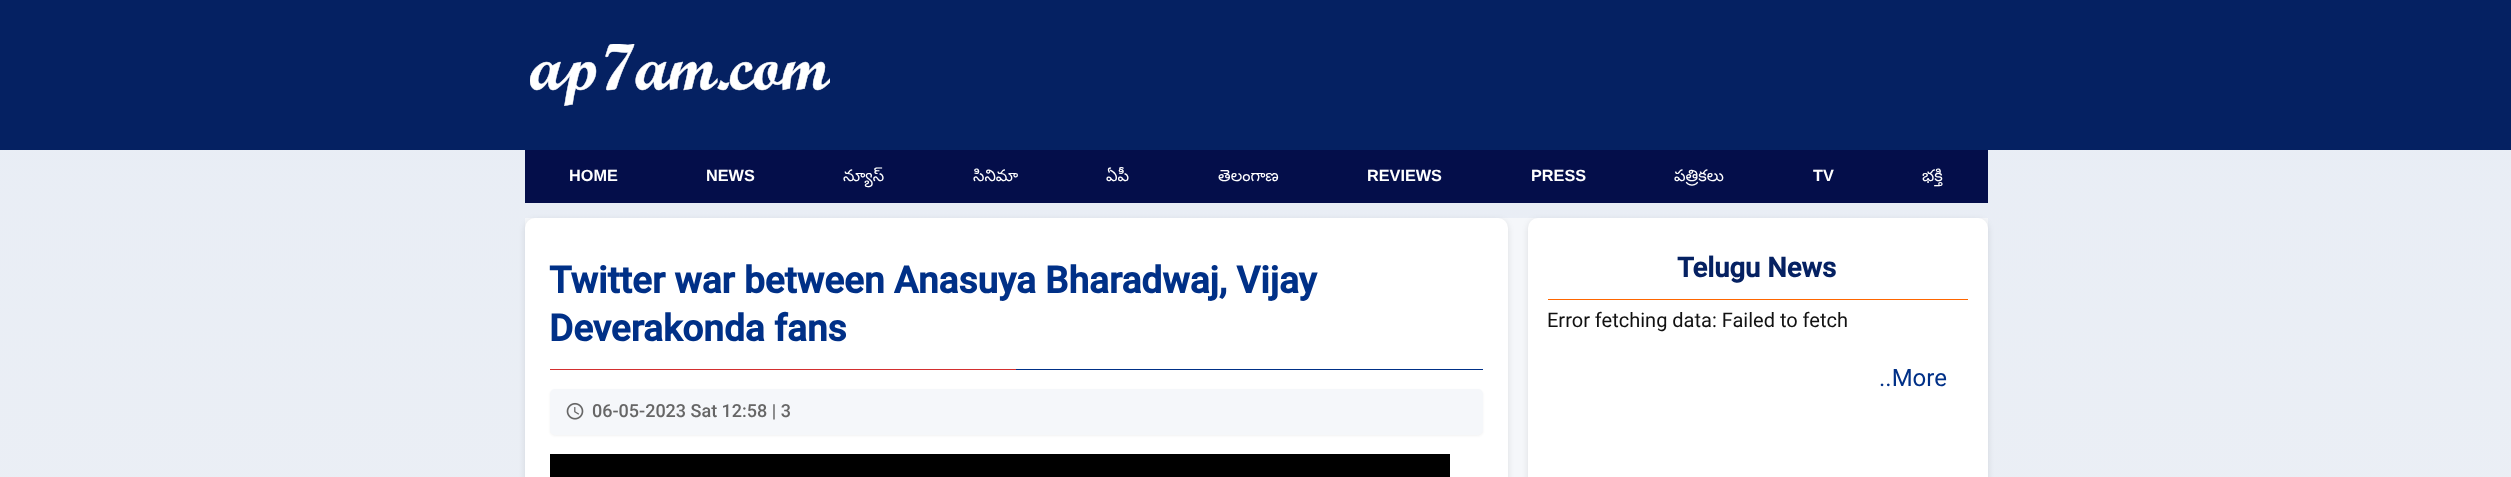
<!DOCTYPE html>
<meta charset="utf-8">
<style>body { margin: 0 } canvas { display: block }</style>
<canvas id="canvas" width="2511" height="477"></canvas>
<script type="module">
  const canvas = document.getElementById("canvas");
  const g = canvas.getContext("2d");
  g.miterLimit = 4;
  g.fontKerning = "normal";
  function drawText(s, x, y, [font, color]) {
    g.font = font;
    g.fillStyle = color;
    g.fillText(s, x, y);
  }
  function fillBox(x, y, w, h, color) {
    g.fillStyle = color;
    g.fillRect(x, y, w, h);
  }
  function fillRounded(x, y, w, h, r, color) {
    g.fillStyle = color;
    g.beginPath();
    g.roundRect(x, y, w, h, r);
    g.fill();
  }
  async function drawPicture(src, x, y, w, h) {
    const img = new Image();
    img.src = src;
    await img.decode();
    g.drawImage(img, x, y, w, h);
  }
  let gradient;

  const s1 = ["bold 16.25px Liberation Sans", "#FFFFFF"];
  const s2 = ["16.25px Noto Sans Telugu", "#FFFFFF"];
  const s3 = ["bold 37px Roboto", "#003087"];
  const s4 = ["500 18px Roboto", "#666666"];
  const s5 = ["bold 27.5px Roboto", "#052162"];
  const s6 = ["20px Roboto", "#111111"];
  const s7 = ["24px Roboto", "#003087"];

  fillBox(0, 0, 2511, 477, "#FFFFFF");
  gradient = g.createLinearGradient(1256, 0, 1256, 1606);
  gradient.addColorStop(0, "#E8EDF5");
  gradient.addColorStop(1, "#F0F2F5");
  g.fillStyle = gradient;
  g.fillRect(0, 150, 2511, 327);
  fillBox(0, 0, 2511, 150, "#052162");
  await drawPicture("pic1.png", 530, 44, 300, 62);
  fillBox(525, 150, 1463, 53, "#040E4A");
  drawText("HOME", 569, 181, s1);
  drawText("NEWS", 706, 181, s1);
  drawText("న్యూస్", 843, 181, s2);
  drawText("సినిమా", 973, 181, s2);
  drawText("ఏపీ", 1106, 181, s2);
  drawText("తెలంగాణ", 1218, 181, s2);
  drawText("REVIEWS", 1367, 181, s1);
  drawText("PRESS", 1531, 181, s1);
  drawText("పత్రికలు", 1674, 181, s2);
  drawText("TV", 1813, 181, s1);
  drawText("భక్తి", 1922, 181, s2);
  fillBox(525, 218, 1463, 259, "#F5F7FA");
  g.fillStyle = "rgba(0, 0, 0, 0.1)";
  g.filter = "blur(3px)";
  g.beginPath();
  g.roundRect(525, 220, 983, 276, 10);
  g.fill();
  g.filter = "none";
  fillRounded(525, 218, 983, 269, 10, "#FFFFFF");
  fillBox(1016, 369, 467, 1, "#003087");
  drawText("Twitter war between Anasuya Bharadwaj, Vijay", 549, 293, s3);
  drawText("Deverakonda fans", 549, 341, s3);
  fillBox(550, 369, 466, 1, "#D32F2F");
  g.fillStyle = "rgba(0, 0, 0, 0.05)";
  g.filter = "blur(1px)";
  g.beginPath();
  g.roundRect(550, 390, 933, 46, 5);
  g.fill();
  g.filter = "none";
  fillRounded(550, 389, 933, 46, 5, "#F5F7FA");
  await drawPicture("pic2.png", 566, 402, 18, 18);
  drawText("06-05-2023 Sat 12:58 | 3", 592, 417, s4);
  fillBox(550, 454, 900, 23, "#000000");
  g.fillStyle = "rgba(0, 0, 0, 0.1)";
  g.filter = "blur(3px)";
  g.beginPath();
  g.roundRect(1528, 220, 460, 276, 10);
  g.fill();
  g.filter = "none";
  fillRounded(1528, 218, 460, 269, 10, "#FFFFFF");
  fillBox(1548, 299, 420, 1, "#FF6600");
  drawText("Telugu News", 1677, 277, s5);
  drawText("Error fetching data: Failed to fetch", 1547, 327, s6);
  drawText("..More", 1879, 386, s7);
</script>
